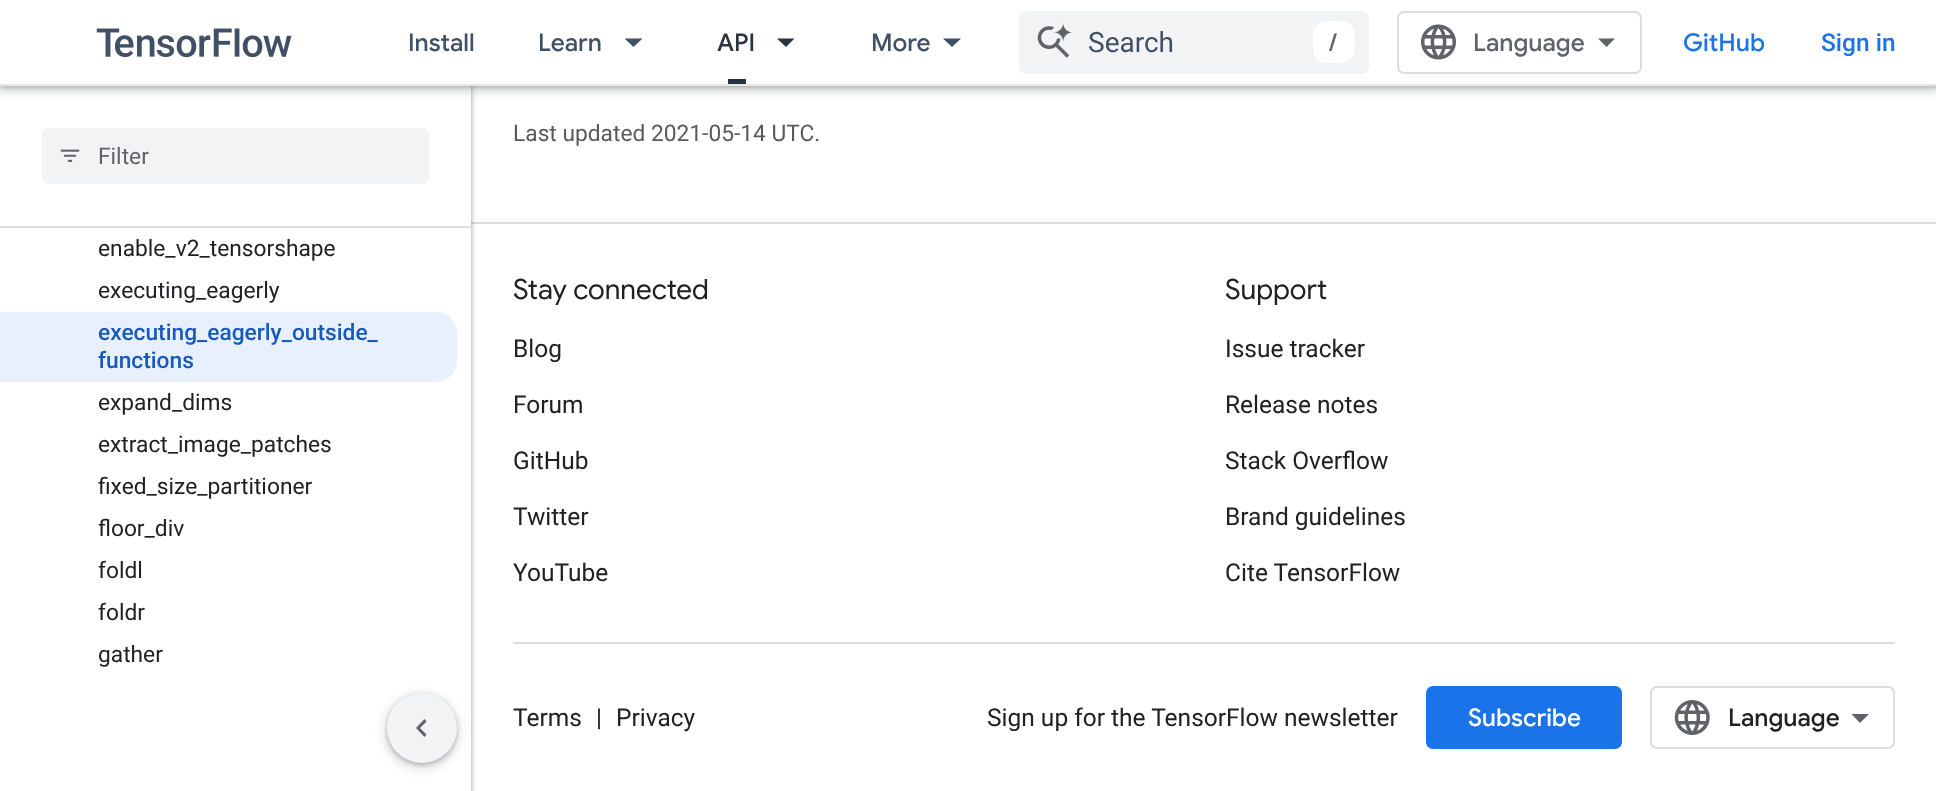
<!DOCTYPE html>
<meta charset="utf-8">
<style>body { margin: 0 } canvas { display: block }</style>
<canvas id="canvas" width="1936" height="791"></canvas>
<script type="module">
  const canvas = document.getElementById("canvas");
  const g = canvas.getContext("2d");
  g.miterLimit = 4;
  g.fontKerning = "normal";
  function drawText(s, x, y, [font, color]) {
    g.font = font;
    g.fillStyle = color;
    g.fillText(s, x, y);
  }
  function fillBox(x, y, w, h, color) {
    g.fillStyle = color;
    g.fillRect(x, y, w, h);
  }
  function fillRounded(x, y, w, h, r, color) {
    g.fillStyle = color;
    g.beginPath();
    g.roundRect(x, y, w, h, r);
    g.fill();
  }
  async function drawPicture(src, x, y, w, h) {
    const img = new Image();
    img.src = src;
    await img.decode();
    g.drawImage(img, x, y, w, h);
  }

  const s1 = ["500 24.5px Google Sans", "#425066"];
  const s2 = ["500 24.5px Google Sans", "#293241"];
  const s3 = ["28px Roboto", "#425066"];
  const s4 = ["500 24.5px Google Sans", "#5F6368"];
  const s5 = ["500 24.5px Google Sans", "#1A73E8"];
  const s6 = ["500 24.5px Roboto", "#1A73E8"];
  const s7 = ["22.75px Roboto", "#5F6368"];
  const s8 = ["22.75px Roboto", "#202124"];
  const s9 = ["500 22.75px Roboto", "#185ABC"];
  const s10 = ["22.75px Roboto", "#595959"];
  const s11 = ["28px Google Sans", "#202124"];
  const s12 = ["24.5px Roboto", "#202124"];
  const s13 = ["500 24.5px Google Sans", "#FFFFFF"];
  const s14 = ["500 24.5px Google Sans", "#202124"];

  fillBox(0, 0, 1936, 791, "#FFFFFF");
  fillBox(471, 222, 1465, 2, "#DADCE0");
  g.fillStyle = "rgba(60, 64, 67, 0.15)";
  g.filter = "blur(2.5px)";
  g.beginPath();
  g.rect(-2, 0, 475, 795);
  g.fill();
  g.filter = "none";
  g.fillStyle = "rgba(60, 64, 67, 0.3)";
  g.filter = "blur(2px)";
  g.beginPath();
  g.rect(0, 2, 471, 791);
  g.fill();
  g.filter = "none";
  fillBox(0, 228, 471, 563, "#FFFFFF");
  fillBox(0, 86, 471, 140, "#FFFFFF");
  g.fillStyle = "rgba(60, 64, 67, 0.15)";
  g.filter = "blur(5px)";
  g.beginPath();
  g.rect(-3, -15, 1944, 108);
  g.fill();
  g.filter = "none";
  g.fillStyle = "rgba(60, 64, 67, 0.3)";
  g.filter = "blur(2px)";
  g.beginPath();
  g.rect(0, -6, 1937, 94);
  g.fill();
  g.filter = "none";
  fillBox(0, 0, 1936, 84, "#FFFFFF");
  fillBox(0, 84, 1936, 2, "#E6E6E6");
  await drawPicture("pic1.png", 96, 28, 196, 30);
  drawText("Install", 408, 51, s1);
  drawText("Learn", 538, 51, s1);
  g.beginPath();
  g.moveTo(624.5, 38.5);
  g.lineTo(642.5, 38.5);
  g.lineTo(633.5, 47);
  g.closePath();
  g.fill();
  drawText("API", 717, 51, s2);
  fillBox(728, 79, 18, 5, "#293241");
  g.beginPath();
  g.moveTo(777, 38.5);
  g.lineTo(794.5, 38.5);
  g.lineTo(786, 47);
  g.closePath();
  g.fill();
  drawText("More", 871, 51, s1);
  g.beginPath();
  g.moveTo(943, 38.5);
  g.lineTo(961, 38.5);
  g.lineTo(952, 47);
  g.closePath();
  g.fill();
  fillRounded(1019, 11, 350, 63, 7, "#F1F3F4");
  await drawPicture("pic2.png", 1037, 23, 36, 35);
  drawText("Search", 1088, 52, s3);
  fillRounded(1313, 21, 42, 42, 14, "#FFFFFF");
  drawText("/", 1329, 51, s4);
  g.beginPath();
  g.roundRect(1398, 12, 243, 61, 6);
  g.strokeStyle = "#DADCE0";
  g.lineWidth = 2;
  g.stroke();
  await drawPicture("pic3.png", 1421, 24, 35, 36);
  drawText("Language", 1473, 51, s4);
  g.beginPath();
  g.moveTo(1606.5, 47);
  g.lineTo(1598, 38.5);
  g.lineTo(1615, 38.5);
  g.closePath();
  g.fill();
  drawText("GitHub", 1683, 51, s5);
  drawText("Sign in", 1821, 51, s6);
  fillBox(0, 226, 471, 2, "#DADCE0");
  fillRounded(42, 128, 387, 56, 7, "#F1F3F4");
  await drawPicture("pic4.png", 60, 149, 20, 13);
  drawText("Filter", 98, 164, s7);
  drawText("enable_v2_tensorshape", 98, 256, s8);
  drawText("executing_eagerly", 98, 298, s8);
  g.fillStyle = "#E8F0FE";
  g.beginPath();
  g.roundRect(0, 312, 457, 70, [0, 21, 21, 0]);
  g.fill();
  drawText("executing_eagerly_outside_", 98, 340, s9);
  drawText("functions", 98, 368, s9);
  drawText("expand_dims", 98, 410, s8);
  drawText("extract_image_patches", 98, 452, s8);
  drawText("fixed_size_partitioner", 98, 494, s8);
  drawText("floor_div", 98, 536, s8);
  drawText("foldl", 98, 578, s8);
  drawText("foldr", 98, 620, s8);
  drawText("gather", 98, 662, s8);
  drawText("Last updated 2021-05-14 UTC.", 513, 141, s10);
  fillBox(513, 642, 1382, 2, "#DADCE0");
  drawText("Stay connected", 513, 299, s11);
  drawText("Blog", 513, 357, s12);
  drawText("Forum", 513, 413, s12);
  drawText("GitHub", 513, 469, s12);
  drawText("Twitter", 513, 525, s12);
  drawText("YouTube", 513, 581, s12);
  drawText("Support", 1225, 299, s11);
  drawText("Issue tracker", 1225, 357, s12);
  drawText("Release notes", 1225, 413, s12);
  drawText("Stack Overflow", 1225, 469, s12);
  drawText("Brand guidelines", 1225, 525, s12);
  drawText("Cite TensorFlow", 1225, 581, s12);
  drawText("Terms", 513, 726, s12);
  drawText("|", 596, 726, s12);
  drawText("Privacy", 616, 726, s12);
  drawText("Sign up for the TensorFlow newsletter", 987, 726, s12);
  fillRounded(1426, 686, 196, 63, 7, "#1A73E8");
  drawText("Subscribe", 1468, 726, s13);
  g.beginPath();
  g.roundRect(1651, 687, 243, 61, 6);
  g.stroke();
  await drawPicture("pic5.png", 1674, 700, 36, 35);
  drawText("Language", 1728, 726, s14);
  g.fillStyle = "#5F6368";
  g.beginPath();
  g.moveTo(1860, 723);
  g.lineTo(1851.5, 714);
  g.lineTo(1869, 714);
  g.closePath();
  g.fill();
  g.fillStyle = "rgba(60, 64, 67, 0.15)";
  g.filter = "blur(5px)";
  g.beginPath();
  g.roundRect(383, 693, 77, 77, 38.5);
  g.fill();
  g.filter = "none";
  g.fillStyle = "rgba(60, 64, 67, 0.3)";
  g.filter = "blur(2px)";
  g.beginPath();
  g.roundRect(387, 695, 70, 70, 35);
  g.fill();
  g.filter = "none";
  g.fillStyle = "#F1F3F4";
  g.beginPath();
  g.arc(422, 728, 35, 0, Math.PI * 2);
  g.fill();
  g.fillStyle = "#5F6368";
  g.beginPath();
  g.moveTo(426.5, 721.5);
  g.lineTo(420, 728);
  g.lineTo(426.5, 734.5);
  g.lineTo(424.5, 737);
  g.lineTo(416, 728);
  g.lineTo(424.5, 719);
  g.closePath();
  g.fill();
</script>
